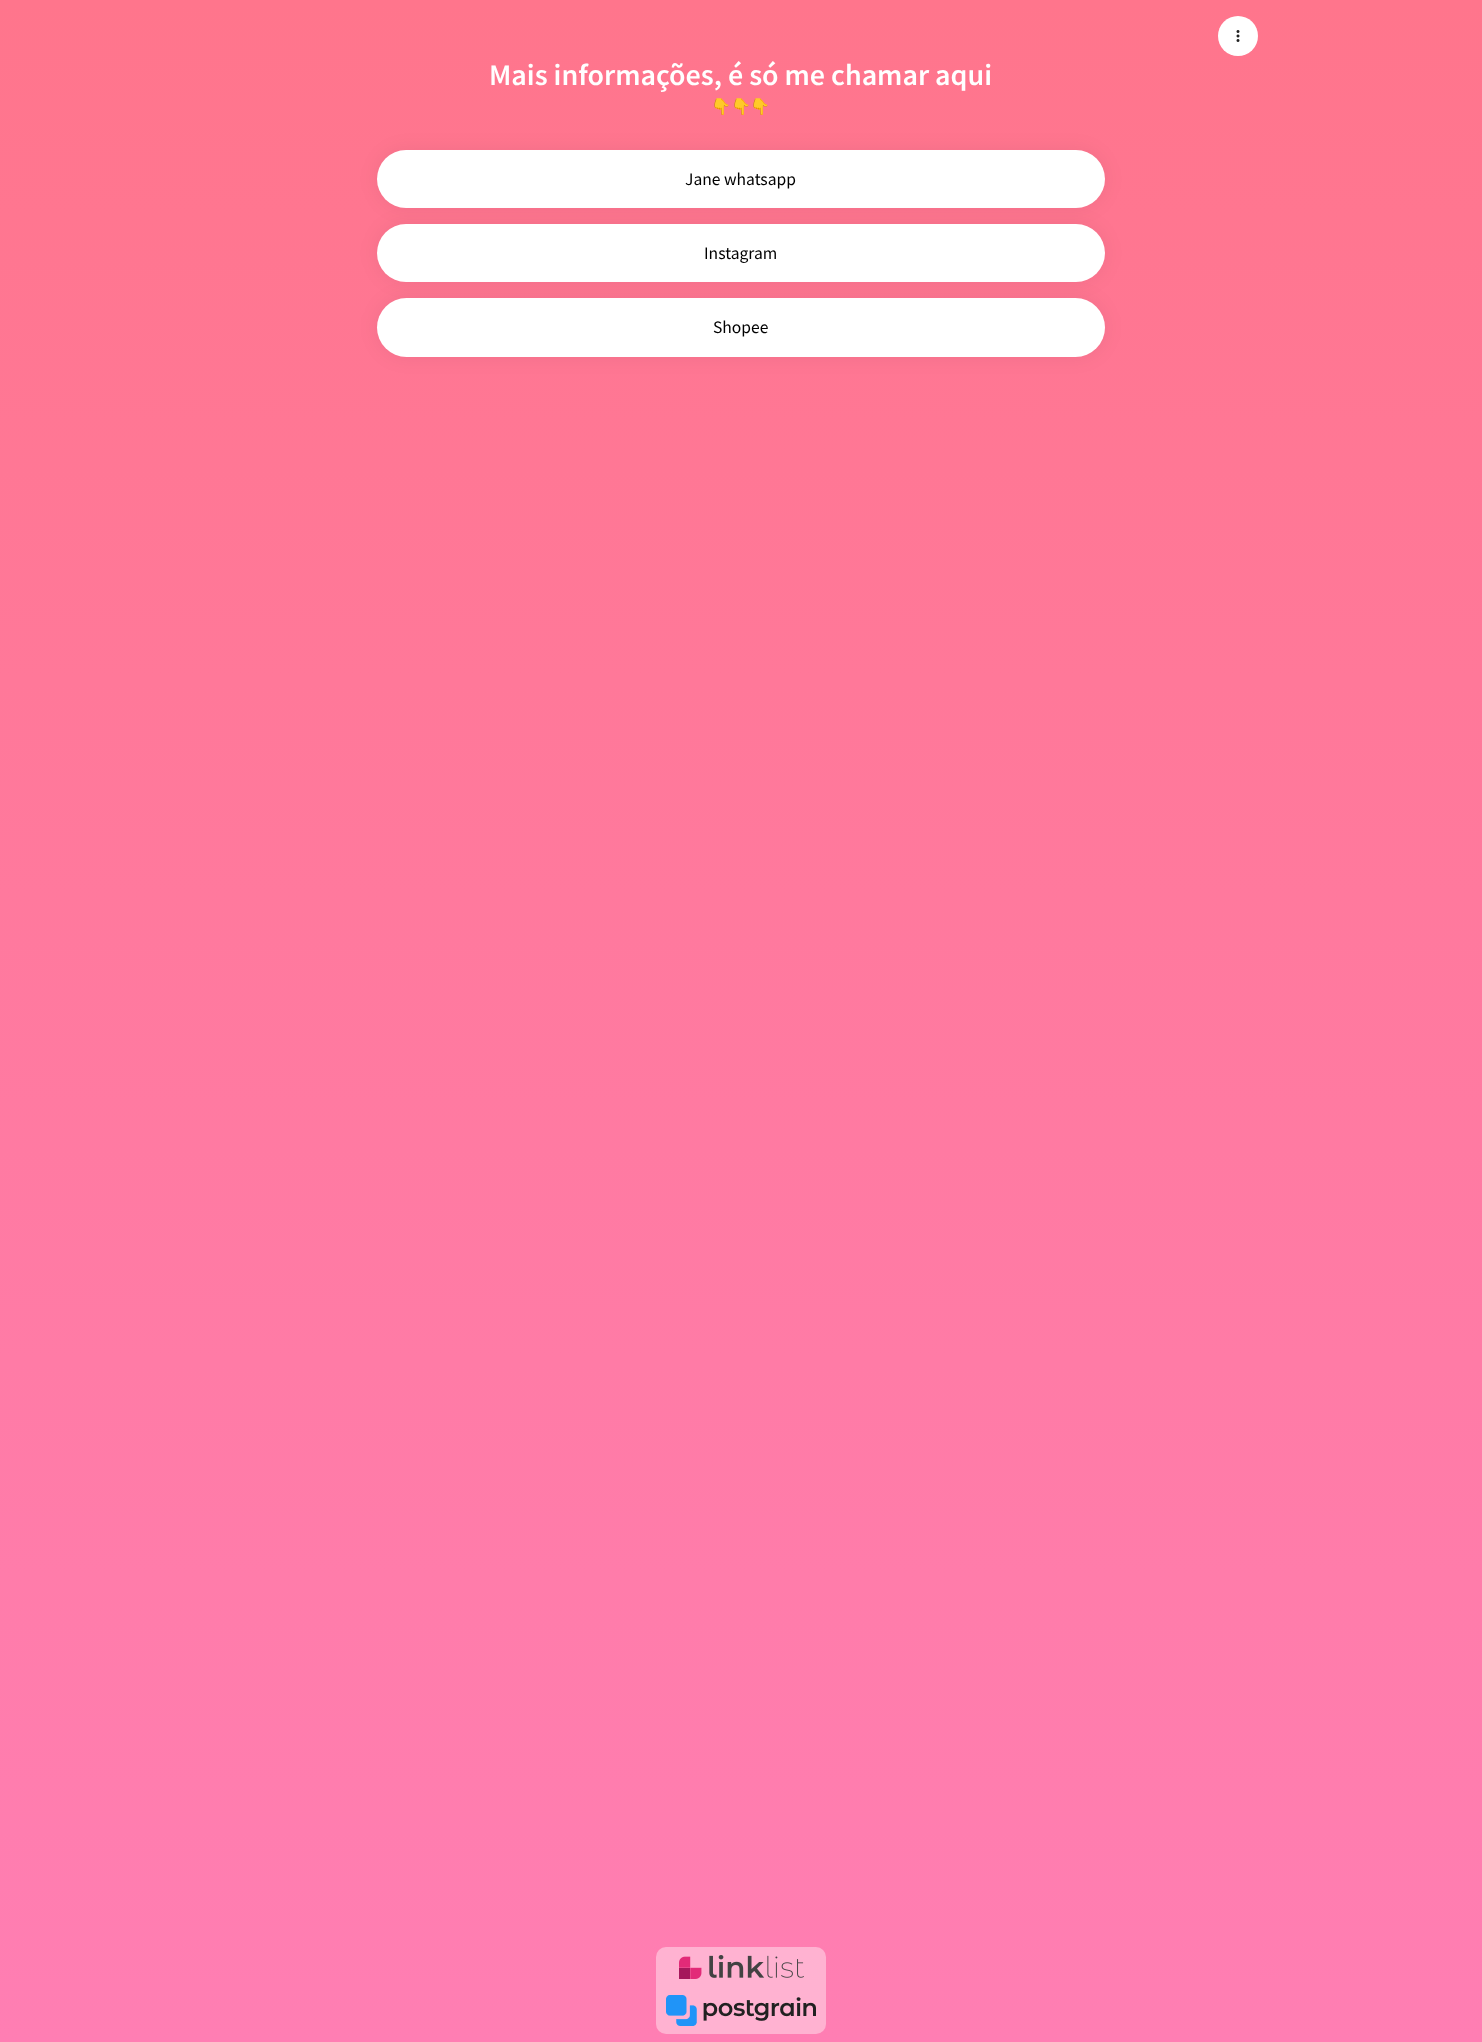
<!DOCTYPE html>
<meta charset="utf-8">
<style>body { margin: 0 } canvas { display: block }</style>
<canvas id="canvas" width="1482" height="2042"></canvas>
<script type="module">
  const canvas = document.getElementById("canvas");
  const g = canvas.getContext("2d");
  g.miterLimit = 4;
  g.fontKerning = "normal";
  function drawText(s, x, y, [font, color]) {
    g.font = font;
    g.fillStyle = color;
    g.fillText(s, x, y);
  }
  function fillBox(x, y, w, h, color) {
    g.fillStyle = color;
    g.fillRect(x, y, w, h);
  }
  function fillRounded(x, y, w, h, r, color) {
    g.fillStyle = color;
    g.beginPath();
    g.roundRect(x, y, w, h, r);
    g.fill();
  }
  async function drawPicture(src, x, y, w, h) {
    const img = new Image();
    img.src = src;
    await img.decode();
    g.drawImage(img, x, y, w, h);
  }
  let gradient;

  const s1 = ["600 30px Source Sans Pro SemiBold", "#FFFFFF"];
  const s2 = ["16px Noto Color Emoji", "#FFFFFF"];
  const s3 = ["17.5px Source Sans Pro", "#000000"];

  fillBox(0, 0, 1482, 2042, "#FFFFFF");
  gradient = g.createLinearGradient(741, 0, 741, 2042);
  gradient.addColorStop(0, "#FF758C");
  gradient.addColorStop(1, "#FF7EB3");
  g.fillStyle = gradient;
  g.fillRect(0, 0, 1482, 2042);
  g.fillStyle = "#FFFFFF";
  g.beginPath();
  g.arc(1238, 36, 20, 0, Math.PI * 2);
  g.fill();
  await drawPicture("pic1.png", 1236, 30, 4, 12);
  drawText("Mais informações, é só me chamar aqui", 489, 85, s1);
  drawText("👇👇👇", 711, 112, s2);
  g.fillStyle = "rgba(0, 0, 0, 0.06)";
  g.filter = "blur(10px)";
  g.beginPath();
  g.roundRect(377, 150, 728, 58, 29);
  g.fill();
  g.filter = "none";
  fillRounded(377, 150, 728, 58, 29, "#FFFFFF");
  drawText("Jane whatsapp", 685, 185, s3);
  g.fillStyle = "rgba(0, 0, 0, 0.06)";
  g.filter = "blur(10px)";
  g.beginPath();
  g.roundRect(377, 224, 728, 58, 29);
  g.fill();
  g.filter = "none";
  fillRounded(377, 224, 728, 58, 29, "#FFFFFF");
  drawText("Instagram", 704, 259, s3);
  g.fillStyle = "rgba(0, 0, 0, 0.06)";
  g.filter = "blur(10px)";
  g.beginPath();
  g.roundRect(377, 298, 728, 59, 29.5);
  g.fill();
  g.filter = "none";
  fillRounded(377, 298, 728, 59, 29.5, "#FFFFFF");
  drawText("Shopee", 713, 333, s3);
  fillRounded(656, 1947, 170, 87, 10, "#FFB2D1");
  await drawPicture("pic2.png", 679, 1955, 125, 24);
  await drawPicture("pic3.png", 666, 1995, 150, 31);
</script>
